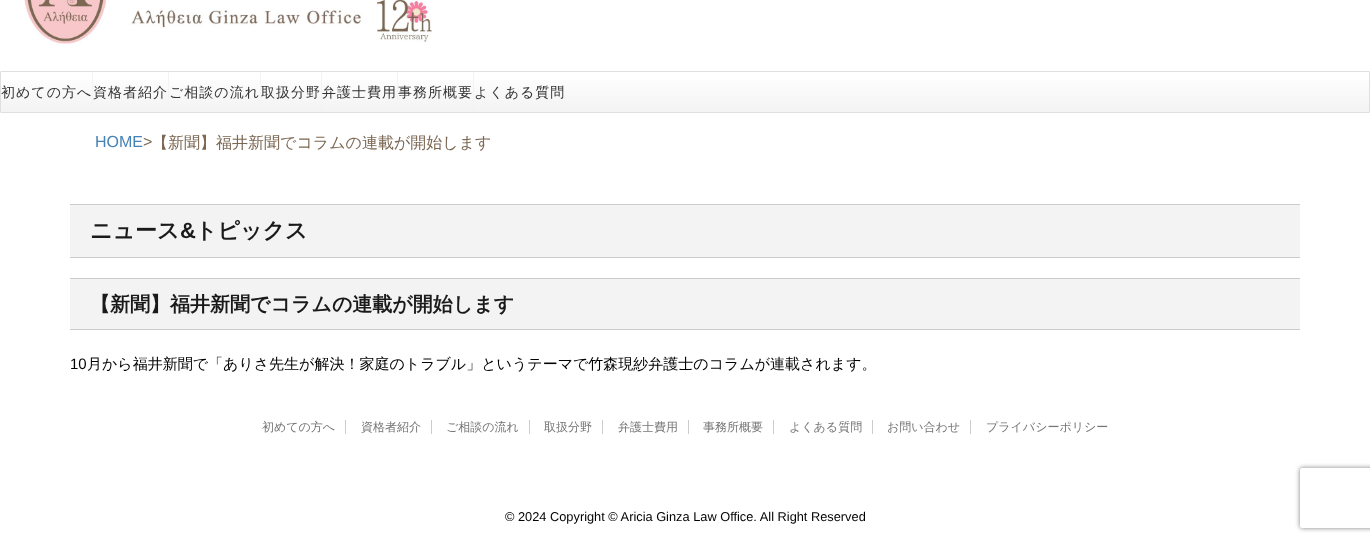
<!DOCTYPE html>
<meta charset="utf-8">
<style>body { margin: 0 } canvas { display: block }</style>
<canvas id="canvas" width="1370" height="542"></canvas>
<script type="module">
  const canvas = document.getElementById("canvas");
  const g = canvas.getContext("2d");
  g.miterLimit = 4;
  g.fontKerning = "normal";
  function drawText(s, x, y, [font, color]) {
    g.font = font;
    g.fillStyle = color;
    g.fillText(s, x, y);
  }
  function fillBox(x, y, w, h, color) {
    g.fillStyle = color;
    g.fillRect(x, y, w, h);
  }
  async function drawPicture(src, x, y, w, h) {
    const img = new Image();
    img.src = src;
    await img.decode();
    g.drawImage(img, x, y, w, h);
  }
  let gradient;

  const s1 = ["500 14px WenQuanYi Zen Hei", "#333333"];
  const s2 = ["16px Liberation Sans", "#4682B4"];
  const s3 = ["16px Liberation Sans", "#7B6752"];
  const s4 = ["500 16px WenQuanYi Zen Hei", "#7B6752"];
  const s5 = ["bold 22px WenQuanYi Zen Hei", "#1A1A1A"];
  const s6 = ["bold 22px Liberation Sans", "#1A1A1A"];
  const s7 = ["bold 20px WenQuanYi Zen Hei", "#1A1A1A"];
  const s8 = ["15px Liberation Sans", "#000000"];
  const s9 = ["500 15px WenQuanYi Zen Hei", "#000000"];
  const s10 = ["500 12px WenQuanYi Zen Hei", "#757575"];
  const s11 = ["12.8px Liberation Sans", "#000000"];

  fillBox(0, 0, 1370, 542, "#FFFFFF");
  await drawPicture("pic1.png", 24, 0, 408, 45);
  gradient = g.createLinearGradient(685, 72, 685, 112);
  gradient.addColorStop(0, "#FFFFFF");
  gradient.addColorStop(1, "#F3F3F3");
  g.fillStyle = gradient;
  g.fillRect(1, 80, 1368, 32);
  g.beginPath();
  g.roundRect(0.5, 71.5, 1369, 41, 0.5);
  g.strokeStyle = "#E0DEDE";
  g.stroke();
  fillBox(92, 72, 1, 40, "#F3F3F3");
  g.letterSpacing = "1px";
  drawText("初めての方へ", 1, 97, s1);
  fillBox(168, 72, 1, 40, "#F3F3F3");
  drawText("資格者紹介", 93, 97, s1);
  fillBox(260, 72, 1, 40, "#F3F3F3");
  drawText("ご相談の流れ", 169, 97, s1);
  fillBox(321, 72, 1, 40, "#F3F3F3");
  drawText("取扱分野", 261, 97, s1);
  fillBox(397, 72, 1, 40, "#F3F3F3");
  drawText("弁護士費用", 322, 97, s1);
  fillBox(473, 72, 1, 40, "#F3F3F3");
  drawText("事務所概要", 398, 97, s1);
  drawText("よくある質問", 474, 97, s1);
  g.letterSpacing = "0px";
  drawText("HOME", 95, 147, s2);
  drawText(">", 143, 147, s3);
  drawText("【新聞】福井新聞でコラムの連載が開始します", 152, 148, s4);
  fillBox(70, 205, 1230, 52, "#F3F3F3");
  fillBox(70, 204, 1230, 1, "#CCCCCC");
  fillBox(70, 257, 1230, 1, "#CCCCCC");
  drawText("ニュース", 90, 238, s5);
  drawText("&", 180, 238, s6);
  drawText("トピックス", 195, 238, s5);
  fillBox(70, 279, 1230, 50, "#F3F3F3");
  fillBox(70, 278, 1230, 1, "#CCCCCC");
  fillBox(70, 329, 1230, 1, "#CCCCCC");
  drawText("【新聞】福井新聞でコラムの連載が開始します", 90, 311, s7);
  drawText("10", 70, 369, s8);
  drawText("月から福井新聞で「ありさ先生が解決！家庭のトラブル」というテーマで竹森現紗弁護士のコラムが連載されます。", 87, 369, s9);
  drawText("初めての方へ", 262, 431, s10);
  fillBox(345, 420, 1, 14, "#CCCCCC");
  drawText("資格者紹介", 361, 431, s10);
  fillBox(431, 420, 1, 14, "#CCCCCC");
  drawText("ご相談の流れ", 446, 431, s10);
  fillBox(529, 420, 1, 14, "#CCCCCC");
  drawText("取扱分野", 544, 431, s10);
  fillBox(602, 420, 1, 14, "#CCCCCC");
  drawText("弁護士費用", 618, 431, s10);
  fillBox(688, 420, 1, 14, "#CCCCCC");
  drawText("事務所概要", 703, 431, s10);
  fillBox(773, 420, 1, 14, "#CCCCCC");
  drawText("よくある質問", 789, 431, s10);
  fillBox(872, 420, 1, 14, "#CCCCCC");
  drawText("お問い合わせ", 887, 431, s10);
  fillBox(970, 420, 1, 14, "#CCCCCC");
  drawText("プライバシーポリシー", 986, 431, s10);
  drawText("© 2024 Copyright © Aricia Ginza Law Office. All Right Reserved", 505, 521, s11);
  g.save();
  g.beginPath();
  g.moveTo(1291, 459);
  g.lineTo(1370, 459);
  g.lineTo(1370, 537);
  g.lineTo(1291, 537);
  g.closePath();
  g.moveTo(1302, 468);
  g.lineTo(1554, 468);
  g.bezierCurveTo(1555, 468, 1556, 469, 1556, 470);
  g.lineTo(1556, 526);
  g.bezierCurveTo(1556, 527, 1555, 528, 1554, 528);
  g.lineTo(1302, 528);
  g.bezierCurveTo(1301, 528, 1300, 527, 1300, 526);
  g.lineTo(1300, 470);
  g.bezierCurveTo(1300, 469, 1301, 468, 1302, 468);
  g.closePath();
  g.clip("evenodd");
  g.fillStyle = "#808080";
  g.filter = "blur(2.5px)";
  g.beginPath();
  g.roundRect(1300, 468, 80, 60, 2);
  g.fill();
  g.filter = "none";
  g.restore();
</script>
